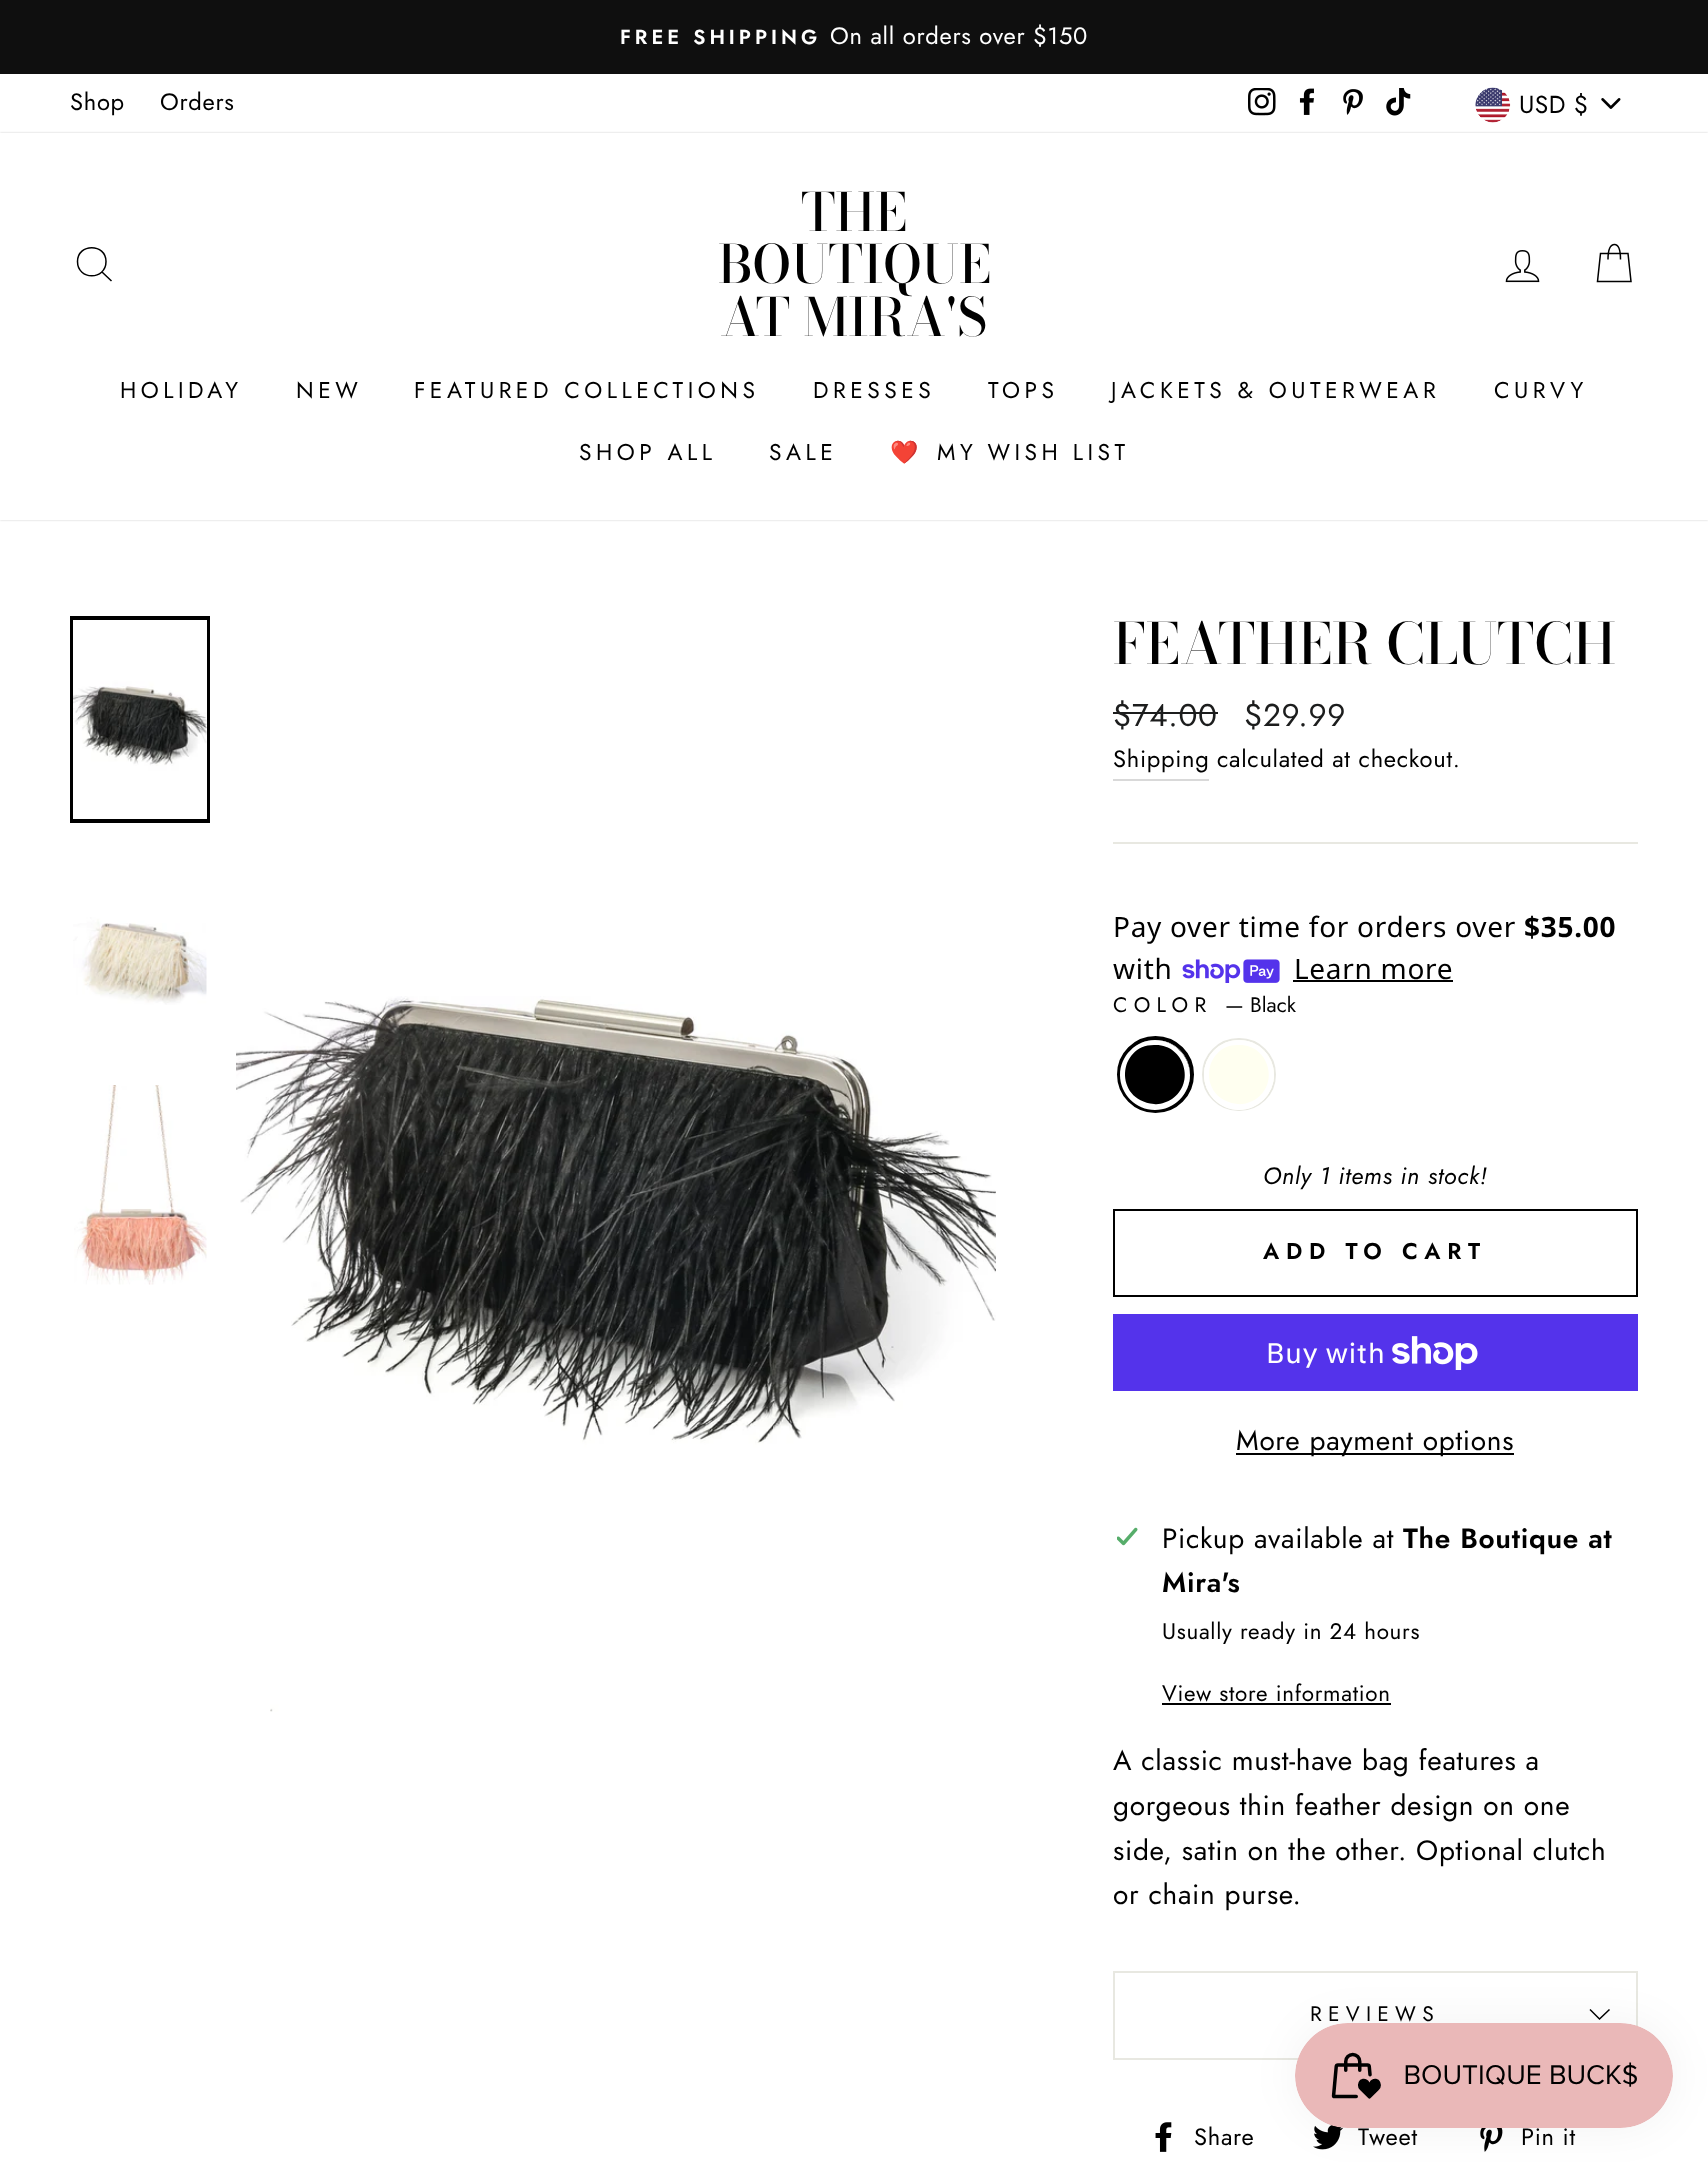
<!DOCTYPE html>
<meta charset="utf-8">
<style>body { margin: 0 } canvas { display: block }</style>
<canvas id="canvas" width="1708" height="2162"></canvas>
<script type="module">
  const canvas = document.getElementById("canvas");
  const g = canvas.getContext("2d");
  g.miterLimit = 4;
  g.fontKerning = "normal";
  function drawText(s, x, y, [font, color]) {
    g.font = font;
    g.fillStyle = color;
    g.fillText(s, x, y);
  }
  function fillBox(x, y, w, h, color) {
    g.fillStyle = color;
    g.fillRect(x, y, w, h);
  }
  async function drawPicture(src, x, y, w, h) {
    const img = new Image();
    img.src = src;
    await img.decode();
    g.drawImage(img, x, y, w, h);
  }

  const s1 = ["600 20.25px Jost", "#FFFFFF"];
  const s2 = ["23.75px Jost", "#FFFFFF"];
  const s3 = ["23.75px Jost", "#000000"];
  const s4 = ["24.5px Jost", "#000000"];
  const s5 = ["500 52.5px 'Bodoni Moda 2'", "#000000"];
  const s6 = ["22.75px Jost", "#000000"];
  const s7 = ["22.75px Noto Color Emoji", "#000000"];
  const s8 = ["500 56.5px Bodoni Moda", "#000000"];
  const s9 = ["31.5px Jost", "#1C1D1D"];
  const s10 = ["28px Noto Sans", "#000000"];
  const s11 = ["bold 28px Noto Sans", "#000000"];
  const s12 = ["21px Jost", "#000000"];
  const s13 = ["italic 23.75px Jost", "#000000"];
  const s14 = ["600 22.75px Jost", "#000000"];
  const s15 = ["28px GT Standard", "#FFFFFF"];
  const s16 = ["28px Jost", "#000000"];
  const s17 = ["600 28px Jost", "#000000"];
  const s18 = ["22.4px Jost", "#000000"];

  fillBox(0, 0, 1708, 2162, "#FFFFFF");
  fillBox(0, 0, 1708, 74, "#0F0F0F");
  g.letterSpacing = "4px";
  drawText("FREE SHIPPING", 620, 44, s1);
  g.letterSpacing = "0.7px";
  drawText("On all orders over $150", 830, 44, s2);
  drawText("Shop", 70, 110, s3);
  drawText("Orders", 160, 110, s3);
  await drawPicture("pic1.png", 1248, 88, 28, 28);
  await drawPicture("pic2.png", 1299, 88, 15, 27);
  await drawPicture("pic3.png", 1343, 89, 20, 26);
  await drawPicture("pic4.png", 1386, 88, 25, 28);
  await drawPicture("pic5.png", 1601, 98, 20, 11);
  await drawPicture("pic6.png", 1475, 87, 36, 36);
  g.letterSpacing = "0.5px";
  drawText("USD $", 1519, 113, s4);
  g.fillStyle = "rgba(0, 0, 0, 0.2)";
  g.filter = "blur(1px)";
  g.beginPath();
  g.rect(0, 133, 1708, 387);
  g.fill();
  g.filter = "none";
  fillBox(0, 133, 1708, 387, "#FFFFFF");
  g.beginPath();
  g.moveTo(106, 261.5);
  g.bezierCurveTo(106, 280.5, 77.5, 280.5, 77.5, 261.5);
  g.bezierCurveTo(77.5, 243, 106, 243, 106, 261.5);
  g.closePath();
  g.moveTo(111.5, 281);
  g.lineTo(102, 272);
  g.strokeStyle = "#000000";
  g.lineWidth = 1.5;
  g.stroke();
  g.letterSpacing = "0px";
  drawText("THE", 801, 231, s5);
  drawText("BOUTIQUE", 718, 283, s5);
  drawText("AT MIRA'S", 720, 336, s5);
  await drawPicture("pic7.png", 1505, 250, 35, 33);
  g.beginPath();
  g.moveTo(1608, 259.5);
  g.bezierCurveTo(1608, 247.5, 1611, 244.5, 1614.5, 244.5);
  g.bezierCurveTo(1617.5, 244.5, 1620.5, 247.5, 1620.5, 259.5);
  g.moveTo(1600.5, 253.5);
  g.lineTo(1628, 253.5);
  g.lineTo(1631, 281.5);
  g.lineTo(1597.5, 281.5);
  g.closePath();
  g.stroke();
  g.letterSpacing = "4.5px";
  drawText("HOLIDAY", 120, 398, s6);
  drawText("NEW", 296, 398, s6);
  drawText("FEATURED COLLECTIONS", 414, 398, s6);
  drawText("DRESSES", 813, 398, s6);
  drawText("TOPS", 988, 398, s6);
  drawText("JACKETS & OUTERWEAR", 1111, 398, s6);
  drawText("CURVY", 1494, 398, s6);
  drawText("SHOP ALL", 579, 460, s6);
  drawText("SALE", 769, 460, s6);
  drawText("❤️", 890, 460, s7);
  g.wordSpacing = "-1px";
  drawText("MY WISH LIST", 937, 460, s6);
  g.lineWidth = 4;
  g.strokeRect(72, 618, 136, 203);
  fillBox(206, 620, 1, 199, "#FFFFFF");
  await drawPicture("pic8.png", 73, 620, 134, 199);
  await drawPicture("pic9.png", 73, 917, 134, 88);
  await drawPicture("pic10.png", 74, 1085, 133, 200);
  await drawPicture("pic11.png", 236, 996, 760, 716);
  g.letterSpacing = "0px";
  g.wordSpacing = "0px";
  drawText("FEATHER CLUTCH", 1113, 664, s8);
  g.letterSpacing = "0.7px";
  drawText("$74.00", 1113, 726, s9);
  fillBox(1113, 712, 105, 2, "#1C1D1D");
  drawText("$29.99", 1244, 726, s9);
  fillBox(1113, 779, 96, 2, "#D9D9D9");
  drawText("Shipping", 1113, 767, s3);
  drawText("calculated at checkout.", 1217, 767, s3);
  fillBox(1113, 842, 525, 2, "#E8E8E1");
  drawText("Pay over time for orders over", 1113, 937, s10);
  drawText("$35.00", 1524, 937, s11);
  drawText("with", 1113, 979, s10);
  await drawPicture("pic12.png", 1182, 959, 98, 24);
  drawText("Learn more", 1294, 979, s10);
  fillBox(1293, 980, 160, 2, "#000000");
  g.letterSpacing = "6.25px";
  drawText("COLOR", 1113, 1012, s12);
  g.letterSpacing = "0px";
  drawText("— Black", 1225, 1012, s12);
  g.beginPath();
  g.arc(1155.5, 1074.5, 36.5, 0, Math.PI * 2);
  g.stroke();
  g.beginPath();
  g.arc(1155, 1075, 35, 0, Math.PI * 2);
  g.fill();
  g.fillStyle = "#FFFFFF";
  g.beginPath();
  g.moveTo(1155, 1040);
  g.bezierCurveTo(1136, 1040, 1120, 1056, 1120, 1075);
  g.bezierCurveTo(1120, 1094, 1136, 1110, 1155, 1110);
  g.bezierCurveTo(1174, 1110, 1190, 1094, 1190, 1075);
  g.bezierCurveTo(1190, 1056, 1174, 1040, 1155, 1040);
  g.closePath();
  g.moveTo(1154, 1045);
  g.bezierCurveTo(1118, 1045, 1113, 1100, 1154, 1104);
  g.bezierCurveTo(1160, 1105, 1167, 1102, 1172, 1099);
  g.bezierCurveTo(1196, 1083, 1184, 1045, 1156, 1045);
  g.closePath();
  g.fill("evenodd");
  g.beginPath();
  g.roundRect(1203, 1039, 72, 71, 35.5);
  g.strokeStyle = "#E8E8E1";
  g.lineWidth = 2;
  g.stroke();
  g.fillStyle = "#FFFFF0";
  g.beginPath();
  g.arc(1239, 1075, 35, 0, Math.PI * 2);
  g.fill();
  g.fillStyle = "#FFFFFF";
  g.beginPath();
  g.moveTo(1239, 1040);
  g.bezierCurveTo(1220, 1040, 1204, 1056, 1204, 1075);
  g.bezierCurveTo(1204, 1094, 1220, 1110, 1239, 1110);
  g.bezierCurveTo(1258, 1110, 1274, 1094, 1274, 1075);
  g.bezierCurveTo(1274, 1056, 1258, 1040, 1239, 1040);
  g.closePath();
  g.moveTo(1238, 1045);
  g.bezierCurveTo(1202, 1045, 1197, 1100, 1238, 1104);
  g.bezierCurveTo(1244, 1105, 1251, 1102, 1256, 1099);
  g.bezierCurveTo(1280, 1083, 1268, 1045, 1240, 1045);
  g.closePath();
  g.fill("evenodd");
  g.letterSpacing = "0.7px";
  drawText("Only 1 items in stock!", 1263, 1184, s13);
  g.strokeStyle = "#000000";
  g.strokeRect(1114, 1210, 523, 86);
  g.letterSpacing = "6.75px";
  drawText("ADD TO CART", 1263, 1259, s14);
  fillBox(1113, 1314, 525, 77, "#5433EB");
  g.letterSpacing = "0.7px";
  drawText("Buy with", 1266, 1363, s15);
  await drawPicture("pic13.png", 1392, 1336, 86, 34);
  fillBox(1236, 1453, 278, 2, "#000000");
  drawText("More payment options", 1236, 1450, s16);
  await drawPicture("pic14.png", 1117, 1527, 21, 19);
  drawText("Pickup available at", 1162, 1548, s16);
  drawText("The Boutique at", 1403, 1548, s17);
  drawText("Mira's", 1162, 1592, s17);
  drawText("Usually ready in 24 hours", 1162, 1639, s18);
  drawText("View store information", 1162, 1701, s18);
  fillBox(1162, 1703, 229, 2, "#000000");
  drawText("A classic must-have bag features a", 1113, 1770, s16);
  drawText("gorgeous thin feather design on one", 1113, 1815, s16);
  drawText("side, satin on the other. Optional clutch", 1113, 1860, s16);
  drawText("or chain purse.", 1113, 1904, s16);
  fillBox(1113, 2058, 186, 2, "#E8E8E1");
  fillBox(1113, 1971, 525, 2, "#E8E8E1");
  fillBox(1636, 1971, 2, 56, "#E8E8E1");
  fillBox(1113, 1971, 2, 87, "#E8E8E1");
  g.letterSpacing = "6.25px";
  drawText("REVIEWS", 1310, 2021, s12);
  g.beginPath();
  g.moveTo(1590, 2009.5);
  g.lineTo(1599.5, 2019);
  g.lineTo(1609.5, 2009.5);
  g.lineWidth = 1.5;
  g.stroke();
  await drawPicture("pic15.png", 1155, 2122, 17, 30);
  g.letterSpacing = "0.7px";
  drawText("Share", 1194, 2145, s3);
  await drawPicture("pic16.png", 1313, 2125, 31, 25);
  drawText("Tweet", 1358, 2145, s3);
  await drawPicture("pic17.png", 1480, 2128, 23, 24);
  drawText("Pin it", 1521, 2145, s3);
  g.fillStyle = "rgba(0, 0, 0, 0.05)";
  g.filter = "blur(22px)";
  g.beginPath();
  g.roundRect(1295, 2023, 378, 105, 52.5);
  g.fill();
  g.filter = "none";
  await drawPicture("pic18.png", 1295, 2023, 378, 105);
</script>
